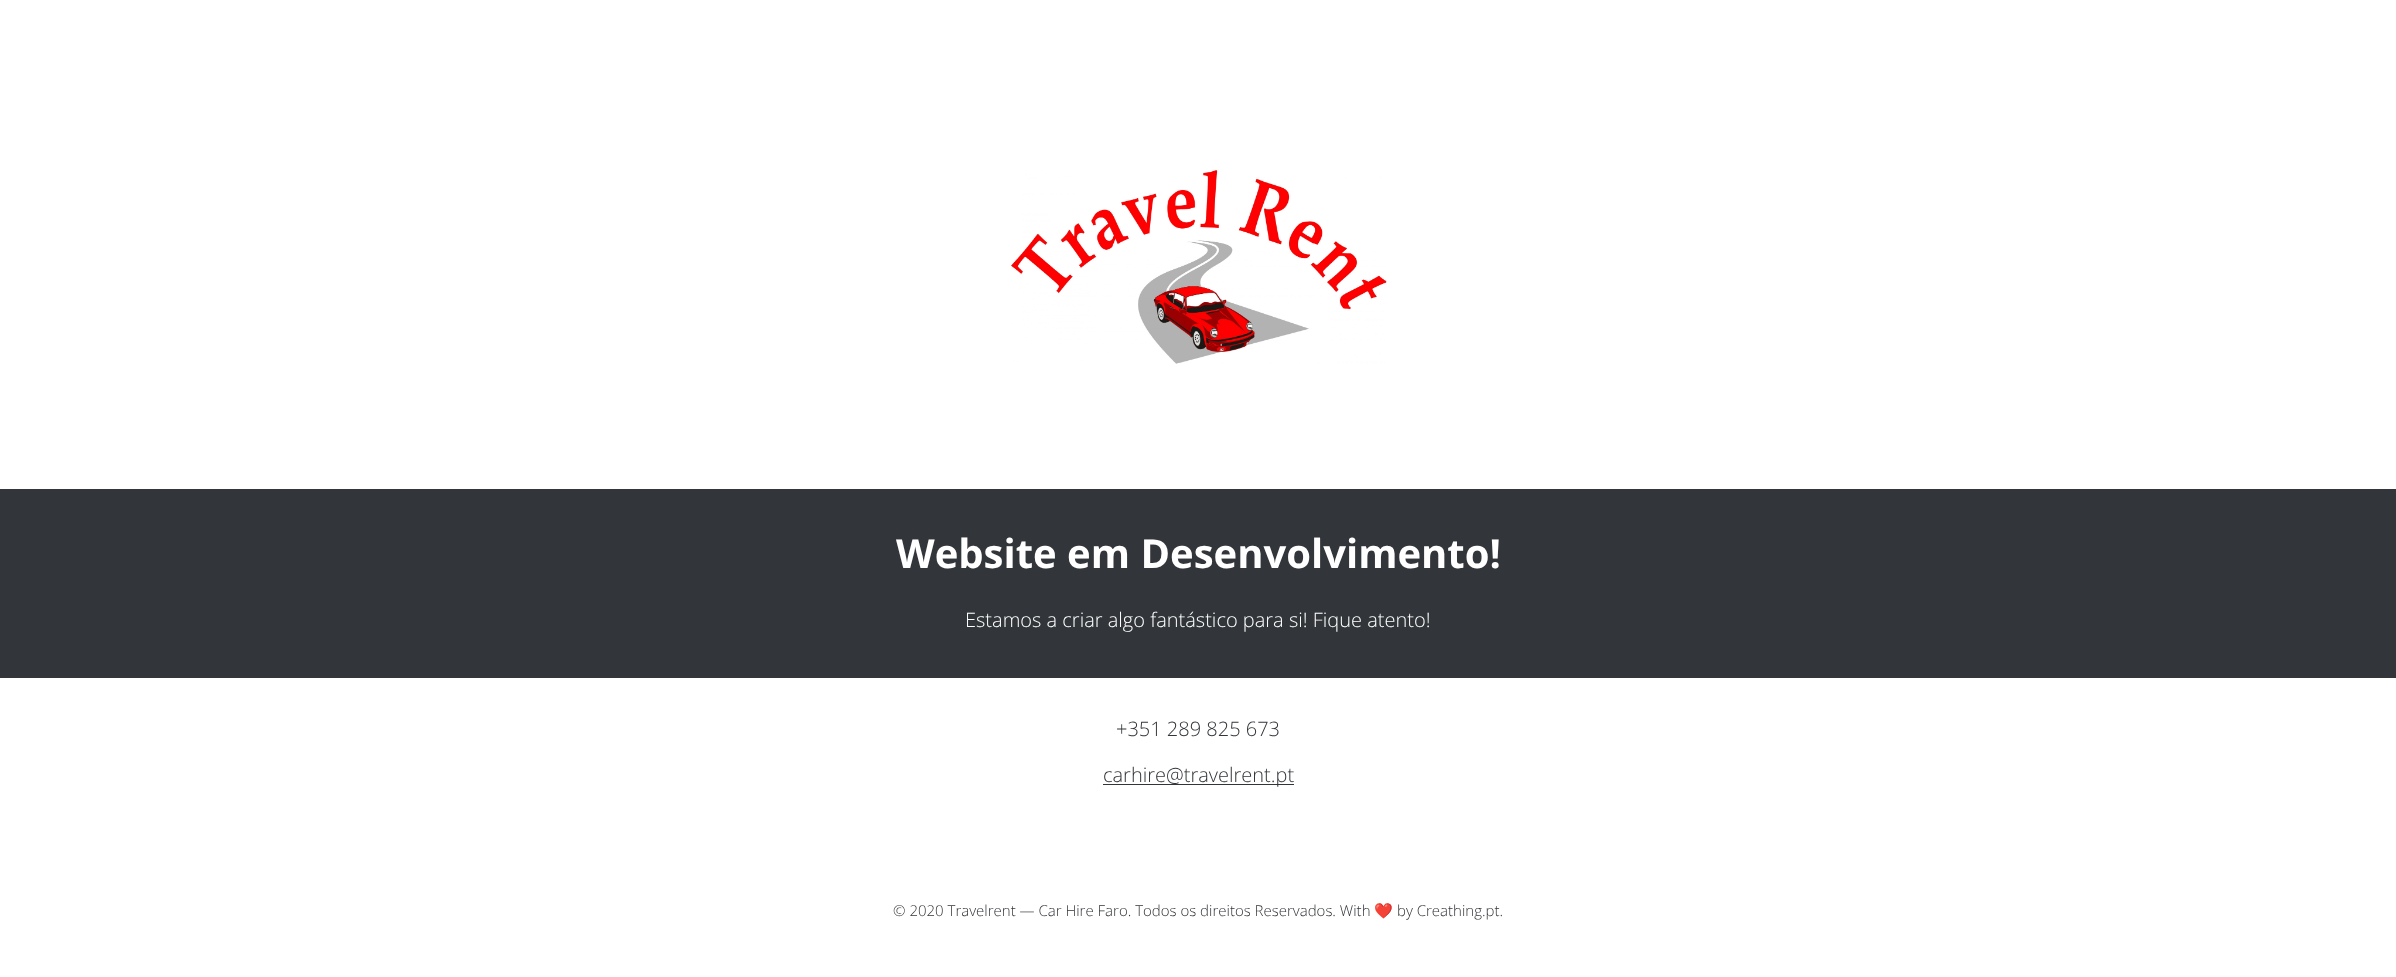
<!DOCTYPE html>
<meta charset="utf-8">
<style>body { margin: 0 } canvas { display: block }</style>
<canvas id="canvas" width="2396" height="977"></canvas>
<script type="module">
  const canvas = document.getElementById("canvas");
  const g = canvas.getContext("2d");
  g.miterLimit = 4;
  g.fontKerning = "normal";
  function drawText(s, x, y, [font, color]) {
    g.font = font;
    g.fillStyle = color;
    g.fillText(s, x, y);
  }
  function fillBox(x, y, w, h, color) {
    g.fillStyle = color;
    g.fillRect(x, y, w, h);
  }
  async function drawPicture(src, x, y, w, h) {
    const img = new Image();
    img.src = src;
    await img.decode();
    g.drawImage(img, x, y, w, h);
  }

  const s1 = ["bold 40px Open Sans", "#FFFFFF"];
  const s2 = ["300 20px Open Sans", "#FFFFFF"];
  const s3 = ["300 20px Open Sans", "#323539"];
  const s4 = ["300 15px Open Sans", "#323539"];
  const s5 = ["15px Noto Color Emoji", "#323539"];

  fillBox(0, 0, 2396, 977, "#FFFFFF");
  await drawPicture("pic1.png", 1011, 170, 376, 194);
  fillBox(0, 489, 2396, 189, "#323539");
  drawText("Website em Desenvolvimento!", 896, 568, s1);
  drawText("Estamos a criar algo fantástico para si! Fique atento!", 965, 627, s2);
  drawText("+351 289 825 673", 1116, 736, s3);
  fillBox(1103, 784, 191, 1, "#323539");
  drawText("carhire@travelrent.pt", 1103, 782, s3);
  drawText("© 2020 Travelrent — Car Hire Faro. Todos os direitos Reservados. With", 893, 916, s4);
  drawText("❤️", 1374, 916, s5);
  drawText("by Creathing.pt.", 1397, 916, s4);
</script>
